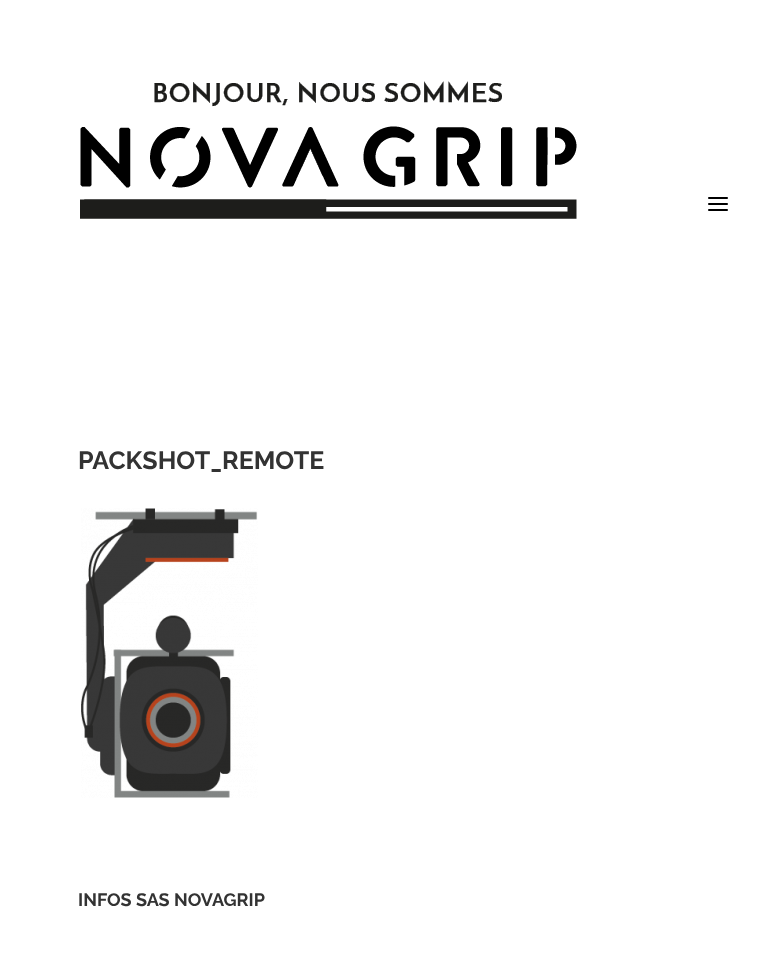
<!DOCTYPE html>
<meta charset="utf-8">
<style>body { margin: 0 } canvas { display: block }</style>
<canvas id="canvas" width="780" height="967"></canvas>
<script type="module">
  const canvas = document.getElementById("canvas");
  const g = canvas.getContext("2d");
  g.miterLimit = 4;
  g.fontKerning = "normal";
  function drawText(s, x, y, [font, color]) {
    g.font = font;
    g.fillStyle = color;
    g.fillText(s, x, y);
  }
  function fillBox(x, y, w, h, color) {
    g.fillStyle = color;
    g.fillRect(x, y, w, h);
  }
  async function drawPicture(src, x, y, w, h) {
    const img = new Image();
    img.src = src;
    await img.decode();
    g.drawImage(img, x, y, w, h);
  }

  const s1 = ["bold 25px Raleway", "#333333"];
  const s2 = ["bold 18px Raleway", "#333333"];

  fillBox(0, 0, 780, 967, "#FFFFFF");
  await drawPicture("pic1.png", 80, 81, 497, 138);
  await drawPicture("pic2.png", 708, 197, 20, 14);
  drawText("PACKSHOT_REMOTE", 78, 469, s1);
  await drawPicture("pic3.png", 81, 508, 177, 290);
  drawText("INFOS SAS NOVAGRIP", 78, 906, s2);
</script>
